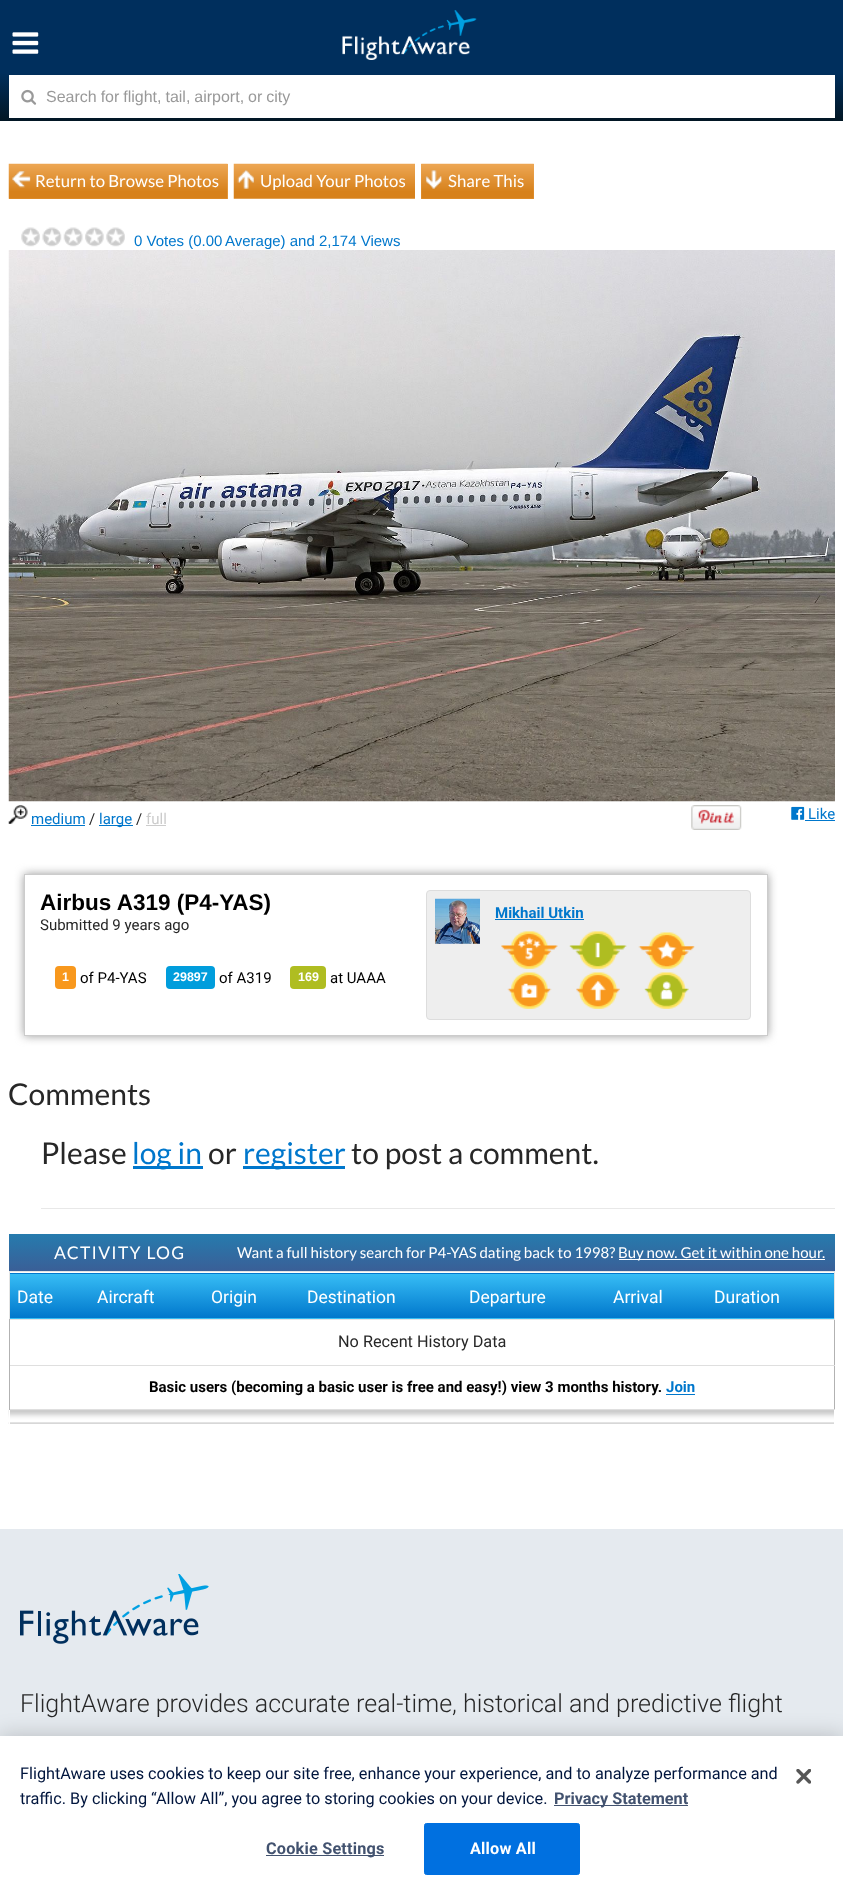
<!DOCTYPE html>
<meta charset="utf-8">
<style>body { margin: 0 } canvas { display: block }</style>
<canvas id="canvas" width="843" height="1895"></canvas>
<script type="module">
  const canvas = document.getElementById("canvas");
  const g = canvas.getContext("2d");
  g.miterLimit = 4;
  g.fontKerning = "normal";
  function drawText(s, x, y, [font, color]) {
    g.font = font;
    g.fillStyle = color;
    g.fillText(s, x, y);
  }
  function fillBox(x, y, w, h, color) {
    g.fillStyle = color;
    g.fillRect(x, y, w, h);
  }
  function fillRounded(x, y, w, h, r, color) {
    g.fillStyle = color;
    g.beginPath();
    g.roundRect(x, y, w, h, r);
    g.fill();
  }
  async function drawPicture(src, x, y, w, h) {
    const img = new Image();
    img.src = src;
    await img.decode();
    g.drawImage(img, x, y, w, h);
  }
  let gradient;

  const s1 = ["16px Liberation Sans", "#999999"];
  const s2 = ["16.75px Lato", "#FFFFFF"];
  const s3 = ["15px Liberation Sans", "#0077CC"];
  const s4 = ["15px Roboto", "#0077CC"];
  const s5 = ["15px Roboto", "#272727"];
  const s6 = ["15px Roboto", "#CCCCCC"];
  const s7 = ["bold 22.5px Liberation Sans", "#000000"];
  const s8 = ["bold 12.5px Liberation Sans", "#FFFFFF"];
  const s9 = ["15px Roboto", "#000000"];
  const s10 = ["bold 15px Roboto", "#0077CC"];
  const s11 = ["30px Lato", "#272727"];
  const s12 = ["30px Lato", "#0077CC"];
  const s13 = ["17.5px Lato", "#FFFFFF"];
  const s14 = ["15px Lato", "#FFFFFF"];
  const s15 = ["17.5px Roboto", "#FFFFFF"];
  const s16 = ["16.25px Roboto", "#272727"];
  const s17 = ["bold 15px Roboto", "#000000"];
  const s18 = ["300 25px Roboto", "#272727"];
  const s19 = ["16.25px Roboto", "#00153D"];
  const s20 = ["bold 16.25px Roboto", "#42526F"];
  const s21 = ["bold 16.25px Roboto", "#FFFFFF"];

  fillBox(0, 0, 843, 1895, "#FFFFFF");
  g.fillStyle = "#888888";
  g.filter = "blur(0.5px)";
  g.beginPath();
  g.rect(1, 3, 842, 118);
  g.fill();
  g.filter = "none";
  gradient = g.createLinearGradient(422, 0, 422, 121);
  gradient.addColorStop(0, "#002F5D");
  gradient.addColorStop(0.6, "#002F5D");
  gradient.addColorStop(1, "#021624");
  g.fillStyle = gradient;
  g.fillRect(0, 0, 843, 121);
  await drawPicture("pic1.png", 12, 32, 27, 22);
  await drawPicture("pic2.png", 342, 10, 135, 50);
  fillBox(9, 75, 826, 43, "#FFFFFF");
  await drawPicture("pic3.png", 21, 89, 16, 16);
  g.wordSpacing = "-0.5px";
  drawText("Search for flight, tail, airport, or city", 46, 102, s1);
  fillBox(9, 121, 826, 1, "#FFFFFF");
  fillBox(9, 164, 219, 35, "#EDA653");
  await drawPicture("pic4.png", 8, 163, 220, 36);
  await drawPicture("pic5.png", 12, 171, 19, 17);
  g.wordSpacing = "0px";
  drawText("Return to Browse Photos", 35, 187, s2);
  await drawPicture("pic6.png", 233, 163, 182, 36);
  await drawPicture("pic7.png", 237, 170, 17, 19);
  drawText("Upload Your Photos", 260, 187, s2);
  fillBox(421, 164, 113, 35, "#EDA653");
  await drawPicture("pic8.png", 421, 163, 113, 36);
  await drawPicture("pic9.png", 425, 170, 17, 19);
  drawText("Share This", 448, 187, s2);
  await drawPicture("pic10.png", 21, 227, 19, 20);
  await drawPicture("pic11.png", 42, 227, 20, 20);
  await drawPicture("pic12.png", 63, 227, 20, 20);
  await drawPicture("pic13.png", 85, 227, 19, 20);
  await drawPicture("pic10.png", 106, 227, 19, 20);
  drawText("0 Votes (0.00", 134, 246, s3);
  drawText("Average) and 2,174 Views", 225, 246, s3);
  await drawPicture("pic14.png", 8, 250, 827, 552);
  await drawPicture("pic15.png", 8, 805, 20, 19);
  drawText("medium", 31, 824, s4);
  fillBox(31, 825, 54, 1, "#0077CC");
  drawText("/", 89, 824, s5);
  fillBox(99, 825, 34, 1, "#0077CC");
  drawText("large", 99, 824, s4);
  drawText("/", 136, 824, s5);
  drawText("full", 146, 824, s6);
  fillBox(146, 825, 20, 1, "#CCCCCC");
  await drawPicture("pic16.png", 691, 805, 51, 25);
  await drawPicture("pic17.png", 791, 806, 14, 14);
  drawText("Like", 808, 819, s4);
  fillBox(805, 820, 30, 1, "#0077CC");
  g.save();
  g.beginPath();
  g.moveTo(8, 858);
  g.lineTo(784, 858);
  g.lineTo(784, 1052);
  g.lineTo(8, 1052);
  g.closePath();
  g.moveTo(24, 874);
  g.lineTo(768, 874);
  g.lineTo(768, 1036);
  g.lineTo(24, 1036);
  g.closePath();
  g.clip("evenodd");
  g.fillStyle = "#999999";
  g.filter = "blur(5px)";
  g.beginPath();
  g.rect(24, 874, 744, 162);
  g.fill();
  g.filter = "none";
  g.restore();
  g.strokeStyle = "#CCCCCC";
  g.strokeRect(24.5, 874.5, 743, 161);
  drawText("Airbus A319 (P4-YAS)", 40, 910, s7);
  drawText("Submitted 9 years ago", 40, 930, s5);
  fillRounded(55, 966, 21, 23, 4, "#F8981D");
  drawText("1", 62, 981, s8);
  drawText("of P4-YAS", 80, 983, s9);
  fillRounded(166, 966, 49, 23, 4, "#009DDC");
  drawText("29897", 173, 981, s8);
  drawText("of A319", 219, 983, s9);
  fillRounded(290, 966, 36, 23, 4, "#AFBD21");
  drawText("169", 298, 981, s8);
  drawText("at UAAA", 330, 983, s9);
  g.fillStyle = "#EEEEEE";
  g.beginPath();
  g.roundRect(426.5, 890.5, 324, 129, 3.5);
  g.fill();
  g.strokeStyle = "#DDDDDD";
  g.stroke();
  await drawPicture("pic18.png", 435, 898, 45, 46);
  drawText("Mikhail Utkin", 495, 918, s10);
  fillBox(495, 919, 89, 1, "#0077CC");
  await drawPicture("pic19.png", 501, 931, 57, 38);
  await drawPicture("pic20.png", 569, 931, 58, 38);
  await drawPicture("pic21.png", 638, 932, 57, 37);
  await drawPicture("pic22.png", 507, 972, 45, 37);
  await drawPicture("pic23.png", 576, 972, 44, 37);
  await drawPicture("pic24.png", 644, 972, 45, 37);
  drawText("Comments", 8, 1105, s11);
  fillBox(41, 1208, 794, 1, "#E8E8E8");
  drawText("Please", 41, 1164, s11);
  fillBox(133, 1166, 70, 3, "#0077CC");
  drawText("log in", 132, 1164, s12);
  drawText("or", 208, 1164, s11);
  fillBox(243, 1166, 102, 3, "#0077CC");
  drawText("register", 243, 1164, s12);
  drawText("to post a comment.", 351, 1164, s11);
  gradient = g.createLinearGradient(9, 1234, 9, 1271);
  gradient.addColorStop(0, "#267BAE");
  gradient.addColorStop(1, "#3A5F97");
  g.fillStyle = gradient;
  g.fillRect(9, 1234, 826, 37);
  g.letterSpacing = "1.25px";
  drawText("ACTIVITY LOG", 54, 1259, s13);
  g.letterSpacing = "0px";
  drawText("Want a full history search for P4-YAS dating back to 1998?", 237, 1258, s14);
  fillBox(619, 1259, 206, 1, "#FFFFFF");
  drawText("Buy now. Get it within one hour.", 618, 1258, s14);
  fillBox(834, 1320, 1, 90, "#B2B2B2");
  gradient = g.createLinearGradient(10, 1230, 10, 1274);
  gradient.addColorStop(0, "#37BDF5");
  gradient.addColorStop(1, "#0077CC");
  g.fillStyle = gradient;
  g.fillRect(9, 1273, 826, 1);
  gradient = g.createLinearGradient(10, 1274, 10, 1318);
  gradient.addColorStop(0, "#37BDF5");
  gradient.addColorStop(1, "#0077CC");
  g.fillStyle = gradient;
  g.fillRect(10, 1274, 824, 44);
  gradient = g.createLinearGradient(10, 1318, 10, 1361);
  gradient.addColorStop(0, "#37BDF5");
  gradient.addColorStop(1, "#0077CC");
  g.fillStyle = gradient;
  g.fillRect(9, 1318, 826, 1);
  fillBox(9, 1271, 826, 1, "#E5E5E4");
  fillBox(834, 1271, 1, 49, "#E5E5E4");
  fillBox(9, 1319, 826, 1, "#E5E5E4");
  fillBox(9, 1271, 1, 49, "#E5E5E4");
  drawText("Date", 17, 1303, s15);
  drawText("Aircraft", 97, 1303, s15);
  drawText("Origin", 211, 1303, s15);
  drawText("Destination", 307, 1303, s15);
  drawText("Departure", 469, 1303, s15);
  drawText("Arrival", 613, 1303, s15);
  drawText("Duration", 714, 1303, s15);
  fillBox(9, 1365, 826, 1, "#DFDFDF");
  drawText("No Recent History Data", 338, 1347, s16);
  fillBox(9, 1409, 826, 1, "#DFDFDF");
  fillBox(9, 1319, 1, 91, "#B2B2B2");
  drawText("Basic users (becoming a basic user is free and easy!) view 3 months history.", 149, 1392, s17);
  drawText("Join", 666, 1392, s10);
  fillBox(666, 1394, 29, 1, "#0077CC");
  await drawPicture("pic25.png", 8, 1410, 826, 14);
  fillBox(9, 1410, 1, 19, "#FFFFFF");
  fillBox(0, 1529, 843, 207, "#E5EAEF");
  await drawPicture("pic26.png", 20, 1574, 189, 70);
  drawText("FlightAware provides accurate real-time, historical and predictive flight", 20, 1712, s18);
  g.fillStyle = "rgba(0, 0, 0, 0.2)";
  g.filter = "blur(11px)";
  g.beginPath();
  g.rect(0, 1736, 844, 159);
  g.fill();
  g.filter = "none";
  fillBox(0, 1736, 843, 159, "#FFFFFF");
  drawText("FlightAware uses cookies to keep our site free, enhance your experience, and to analyze performance and", 20, 1779, s19);
  drawText("traffic. By clicking “Allow All”, you agree to storing cookies on your device.", 20, 1804, s19);
  fillBox(554, 1805, 134, 1, "#42526F");
  drawText("Privacy Statement", 554, 1804, s20);
  fillBox(266, 1855, 118, 1, "#42526F");
  g.letterSpacing = "0.2px";
  drawText("Cookie Settings", 266, 1854, s20);
  g.fillStyle = "#0070E0";
  g.beginPath();
  g.roundRect(424.5, 1823.5, 155, 51, 2);
  g.fill();
  g.strokeStyle = "#0070E0";
  g.stroke();
  drawText("Allow All", 470, 1854, s21);
  await drawPicture("pic27.png", 796, 1769, 15, 15);
</script>
